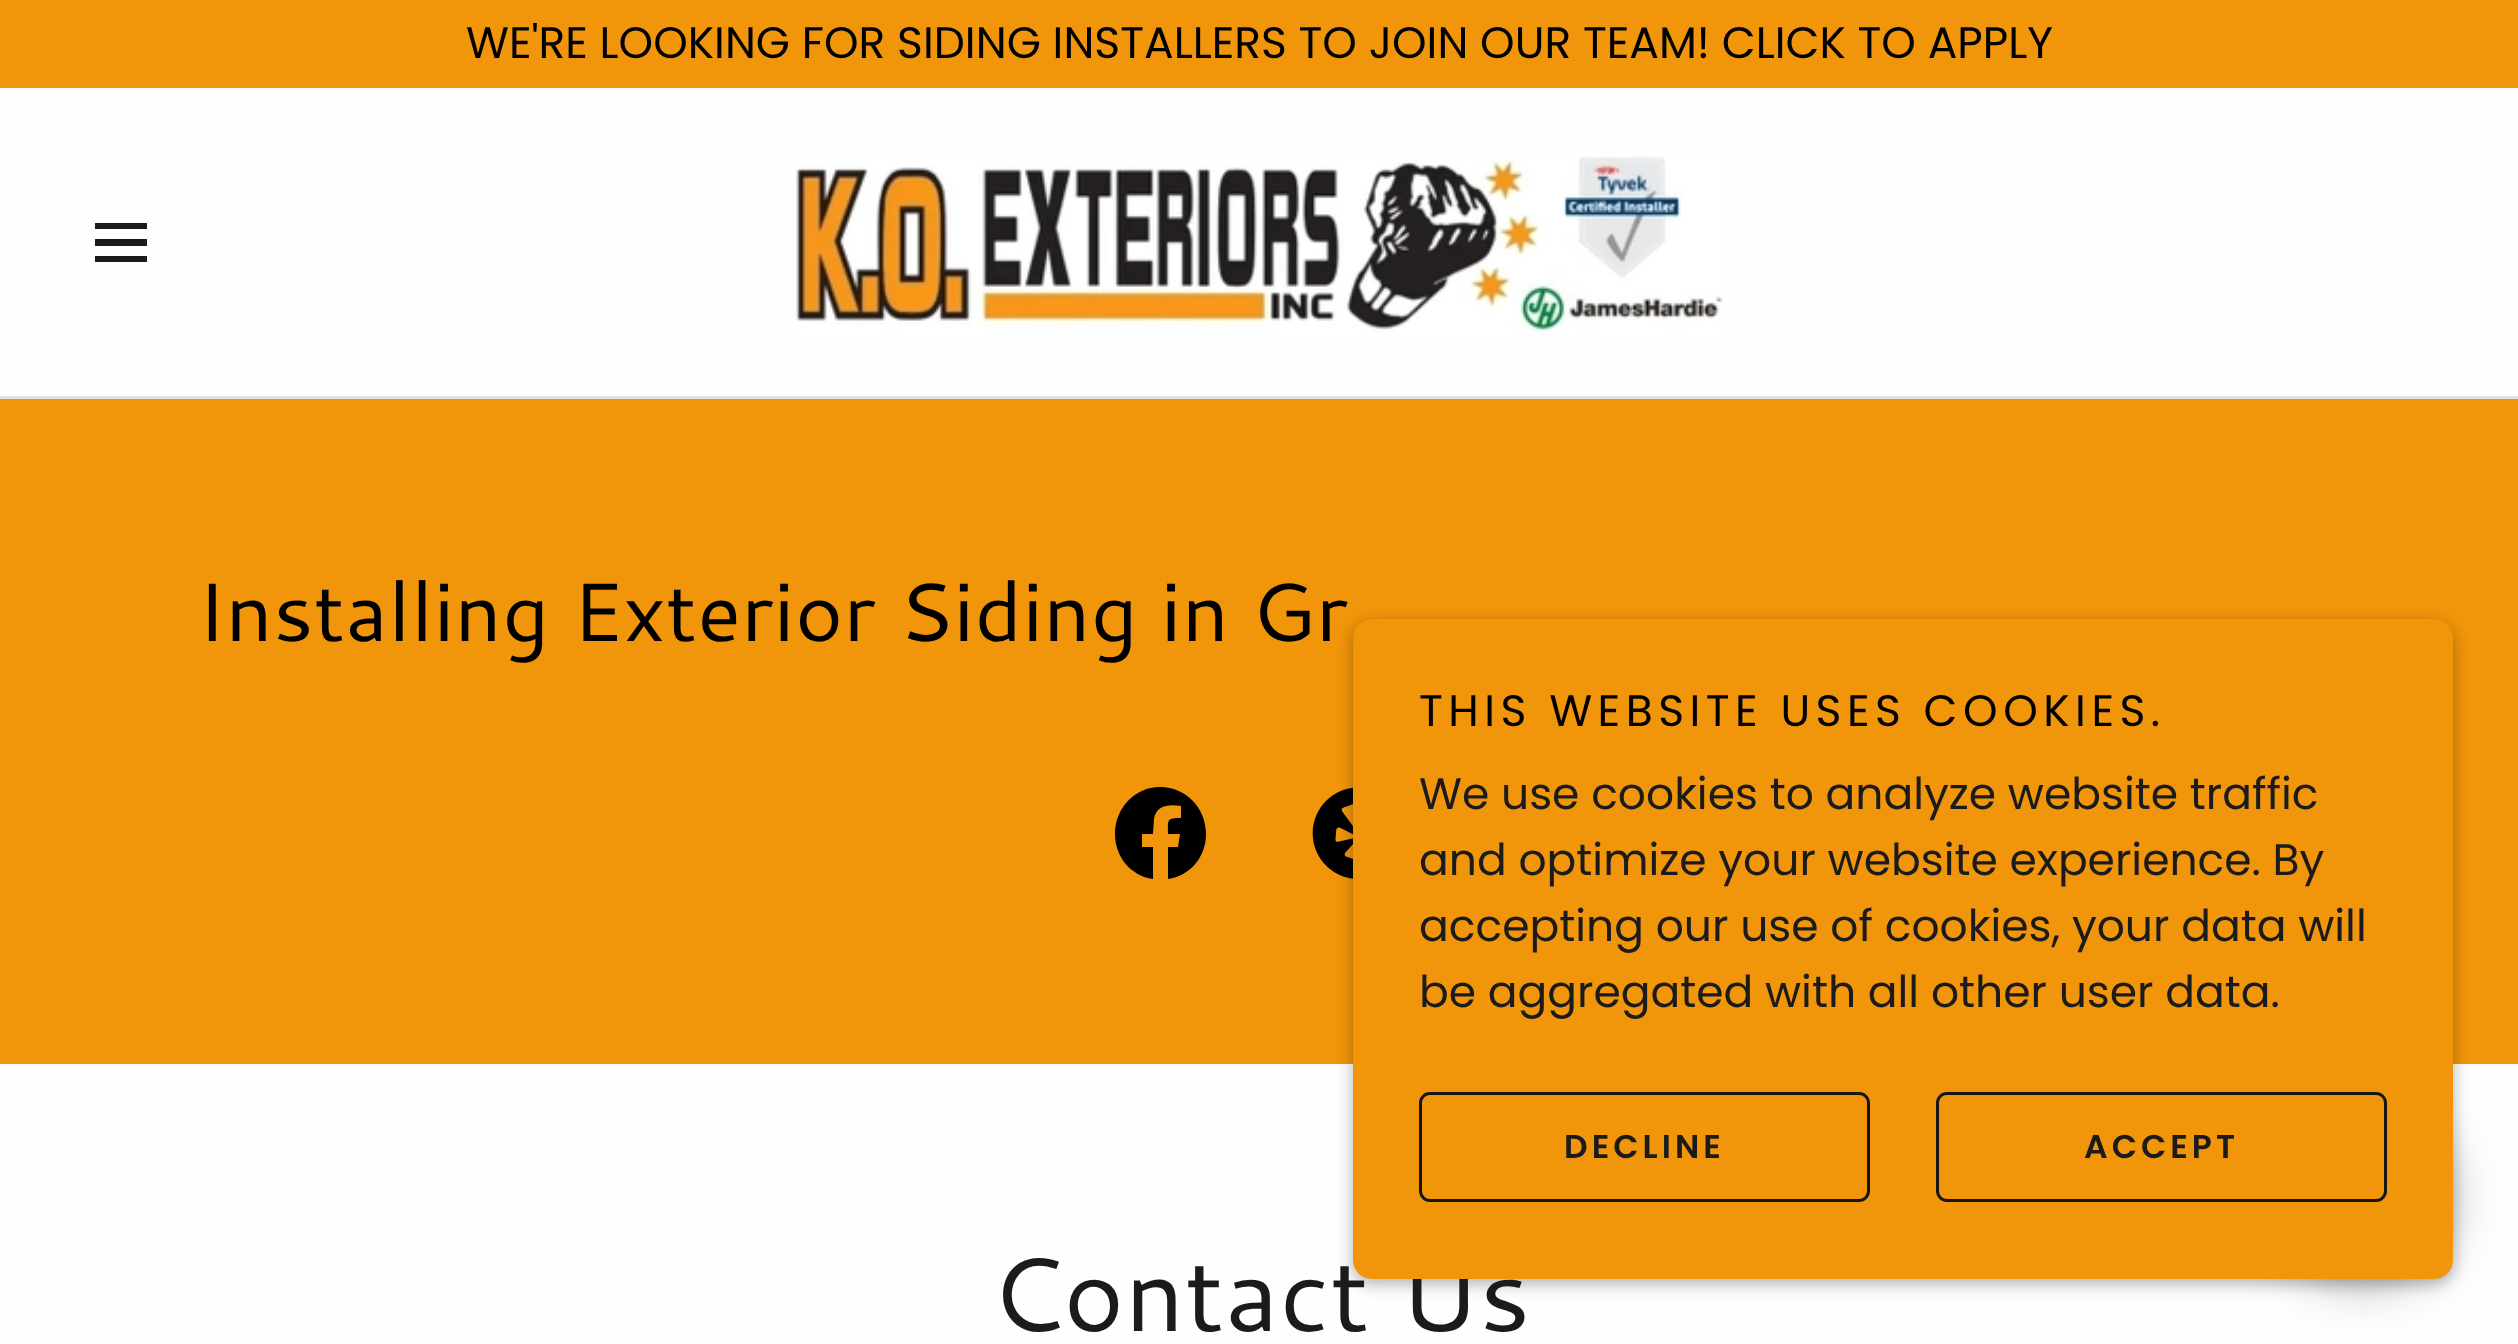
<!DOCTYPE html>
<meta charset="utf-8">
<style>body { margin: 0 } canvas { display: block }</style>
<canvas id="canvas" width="2518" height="1344"></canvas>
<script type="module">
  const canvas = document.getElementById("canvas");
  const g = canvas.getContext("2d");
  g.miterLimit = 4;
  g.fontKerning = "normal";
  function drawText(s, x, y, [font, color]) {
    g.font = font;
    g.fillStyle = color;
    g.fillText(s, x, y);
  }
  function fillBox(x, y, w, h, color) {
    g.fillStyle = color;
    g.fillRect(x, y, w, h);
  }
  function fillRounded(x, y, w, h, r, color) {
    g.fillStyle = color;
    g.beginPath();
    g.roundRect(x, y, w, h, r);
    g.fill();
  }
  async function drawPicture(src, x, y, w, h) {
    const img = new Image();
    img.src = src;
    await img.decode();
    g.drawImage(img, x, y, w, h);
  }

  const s1 = ["44px Poppins", "#000000"];
  const s2 = ["82.5px Cantarell", "#000000"];
  const s3 = ["104.5px Cantarell", "#1B1B1B"];
  const s4 = ["44px Poppins", "#1B1B1B"];
  const s5 = ["600 33px Poppins", "#1B1B1B"];

  fillBox(0, 0, 2518, 1344, "#FEFEFE");
  fillBox(0, 0, 2518, 88, "#F1950B");
  drawText("WE'RE LOOKING FOR SIDING INSTALLERS TO JOIN OUR TEAM! CLICK TO APPLY", 466, 58, s1);
  fillBox(95, 223, 52, 6, "#1B1B1B");
  fillBox(95, 239, 52, 7, "#1B1B1B");
  fillBox(95, 256, 52, 6, "#1B1B1B");
  await drawPicture("pic1.png", 796, 156, 927, 179);
  fillBox(0, 396, 2518, 3, "#E2E2E2");
  fillBox(0, 399, 2518, 665, "#F1950B");
  drawText("Installing Exterior Siding in Gr", 196, 641, s2);
  g.beginPath();
  g.moveTo(1206, 834);
  g.bezierCurveTo(1206, 808, 1186, 787, 1160, 787);
  g.bezierCurveTo(1135, 787, 1115, 808, 1115, 834);
  g.bezierCurveTo(1115, 857, 1131, 876, 1153, 879);
  g.lineTo(1153, 847);
  g.lineTo(1142, 847);
  g.lineTo(1142, 834);
  g.lineTo(1153, 834);
  g.lineTo(1154, 819);
  g.bezierCurveTo(1156, 805, 1169, 804, 1181, 806);
  g.lineTo(1181, 818);
  g.bezierCurveTo(1166, 818, 1168, 820, 1168, 834);
  g.lineTo(1180, 834);
  g.lineTo(1178, 847);
  g.lineTo(1168, 847);
  g.lineTo(1168, 879);
  g.bezierCurveTo(1190, 876, 1206, 857, 1206, 834);
  g.closePath();
  g.fill("evenodd");
  await drawPicture("pic2.png", 1312, 787, 41, 92);
  g.fillStyle = "rgba(0, 0, 0, 0.3)";
  g.filter = "blur(8px)";
  g.beginPath();
  g.roundRect(1353, 624, 1100, 660, 19);
  g.fill();
  g.filter = "none";
  drawText("Contact Us", 989, 1331, s3);
  g.fillStyle = "rgba(0, 0, 0, 0.25)";
  g.filter = "blur(25px)";
  g.beginPath();
  g.roundRect(2274, 1108, 179, 179, 89.5);
  g.fill();
  g.filter = "none";
  fillRounded(1353, 619, 1100, 660, 19, "#F1950B");
  g.letterSpacing = "5.5px";
  drawText("THIS WEBSITE USES COOKIES.", 1419, 726, s1);
  g.letterSpacing = "0px";
  drawText("We use cookies to analyze website traffic", 1419, 809, s4);
  drawText("and optimize your website experience. By", 1419, 875, s4);
  drawText("accepting our use of cookies, your data will", 1419, 941, s4);
  drawText("be aggregated with all other user data.", 1419, 1007, s4);
  g.beginPath();
  g.roundRect(1420.5, 1093.5, 448, 107, 9.5);
  g.strokeStyle = "#161616";
  g.lineWidth = 3;
  g.stroke();
  g.letterSpacing = "4px";
  drawText("DECLINE", 1564, 1158, s5);
  g.beginPath();
  g.roundRect(1937.5, 1093.5, 448, 107, 9.5);
  g.stroke();
  drawText("ACCEPT", 2084, 1158, s5);
</script>
